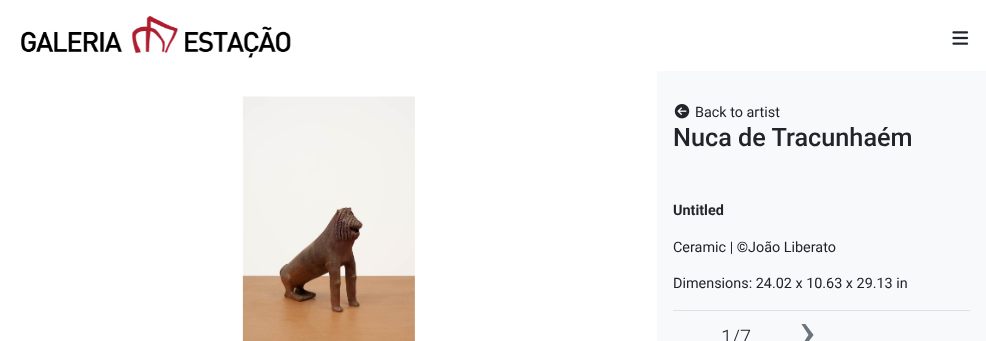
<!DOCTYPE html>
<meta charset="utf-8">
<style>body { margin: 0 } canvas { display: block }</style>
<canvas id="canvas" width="986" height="341"></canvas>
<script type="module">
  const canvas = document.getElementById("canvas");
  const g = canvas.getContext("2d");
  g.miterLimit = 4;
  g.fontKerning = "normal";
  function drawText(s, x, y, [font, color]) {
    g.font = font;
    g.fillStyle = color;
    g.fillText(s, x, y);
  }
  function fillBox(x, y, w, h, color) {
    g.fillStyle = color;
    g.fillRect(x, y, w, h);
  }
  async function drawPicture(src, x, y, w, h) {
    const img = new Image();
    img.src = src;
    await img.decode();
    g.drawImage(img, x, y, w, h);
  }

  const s1 = ["14.4px Roboto", "#212529"];
  const s2 = ["500 25.25px Roboto", "#212529"];
  const s3 = ["bold 14.4px Roboto", "#212529"];
  const s4 = ["300 20px Roboto", "#212529"];
  const s5 = ["56px Roboto", "#6C757D"];

  fillBox(0, 0, 986, 341, "#FFFFFF");
  await drawPicture("pic1.png", 21, 16, 270, 42);
  await drawPicture("pic2.png", 952, 31, 17, 14);
  fillBox(657, 71, 329, 270, "#F8F9FA");
  await drawPicture("pic3.png", 242, 96, 173, 245);
  await drawPicture("pic4.png", 674, 104, 16, 15);
  drawText("Back to artist", 695, 117, s1);
  drawText("Nuca de Tracunhaém", 673, 146, s2);
  drawText("Untitled", 673, 215, s3);
  drawText("Ceramic | ©João Liberato", 673, 252, s1);
  drawText("Dimensions: 24.02 x 10.63 x 29.13 in", 673, 288, s1);
  fillBox(673, 310, 297, 1, "#DEE2E6");
  drawText("1/7", 721, 344, s4);
  drawText("›", 799, 350, s5);
</script>
